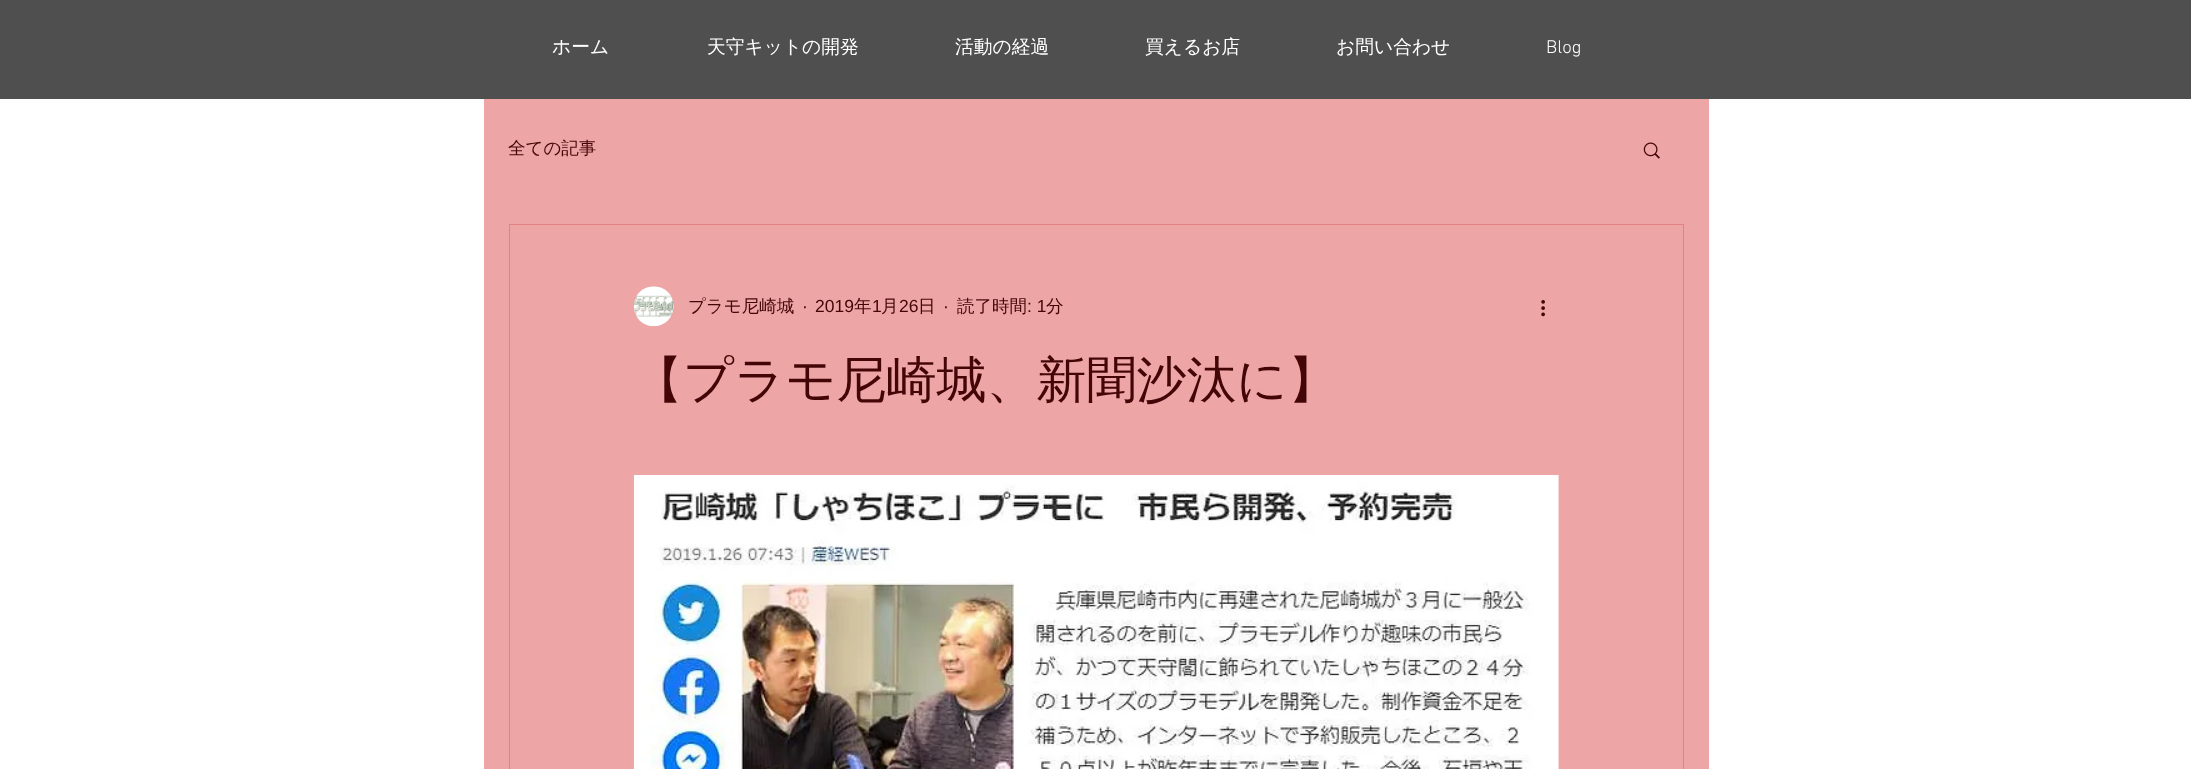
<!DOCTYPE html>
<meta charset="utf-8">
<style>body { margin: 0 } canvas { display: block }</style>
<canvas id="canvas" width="2191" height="769"></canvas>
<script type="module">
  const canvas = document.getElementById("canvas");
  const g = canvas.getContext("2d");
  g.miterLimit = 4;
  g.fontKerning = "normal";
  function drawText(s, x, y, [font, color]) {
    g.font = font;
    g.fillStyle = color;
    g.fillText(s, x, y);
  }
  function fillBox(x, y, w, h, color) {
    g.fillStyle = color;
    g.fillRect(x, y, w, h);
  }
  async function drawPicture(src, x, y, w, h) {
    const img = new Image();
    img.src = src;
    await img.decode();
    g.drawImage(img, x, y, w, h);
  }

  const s1 = ["500 18.75px WenQuanYi Zen Hei", "#FFFFFF"];
  const s2 = ["300 18.75px 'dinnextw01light'", "#FFFFFF"];
  const s3 = ["500 17.5px WenQuanYi Zen Hei", "#440506"];
  const s4 = ["17.5px Liberation Sans", "#440506"];
  const s5 = ["500 50px WenQuanYi Zen Hei", "#440506"];

  fillBox(0, 0, 2191, 769, "#FFFFFF");
  fillBox(0, 0, 2191, 99, "#4F4F4F");
  drawText("ホーム", 552, 53, s1);
  drawText("天守キットの開発", 707, 53, s1);
  drawText("活動の経過", 955, 53, s1);
  drawText("買えるお店", 1145, 53, s1);
  drawText("お問い合わせ", 1336, 53, s1);
  drawText("Blog", 1546, 53, s2);
  fillBox(484, 99, 1225, 670, "#EDA5A6");
  drawText("全ての記事", 508, 154, s3);
  await drawPicture("pic1.png", 1643, 142, 17, 17);
  g.strokeStyle = "#E18384";
  g.strokeRect(509.5, 224.5, 1174, 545);
  await drawPicture("pic2.png", 633, 286, 41, 41);
  drawText("プラモ尼崎城", 688, 312, s3);
  drawText("·", 802, 312, s4);
  drawText("2019", 815, 312, s4);
  drawText("年", 854, 312, s3);
  drawText("1", 872, 312, s4);
  drawText("月", 881, 312, s3);
  drawText("26", 899, 312, s4);
  drawText("日", 918, 312, s3);
  drawText("·", 943, 312, s4);
  drawText("読了時間", 957, 312, s3);
  drawText(": 1", 1027, 312, s4);
  drawText("分", 1046, 312, s3);
  await drawPicture("pic3.png", 1541, 300, 4, 17);
  drawText("【プラモ尼崎城、新聞沙汰に】", 633, 397, s5);
  await drawPicture("pic4.png", 633, 475, 926, 294);
</script>
